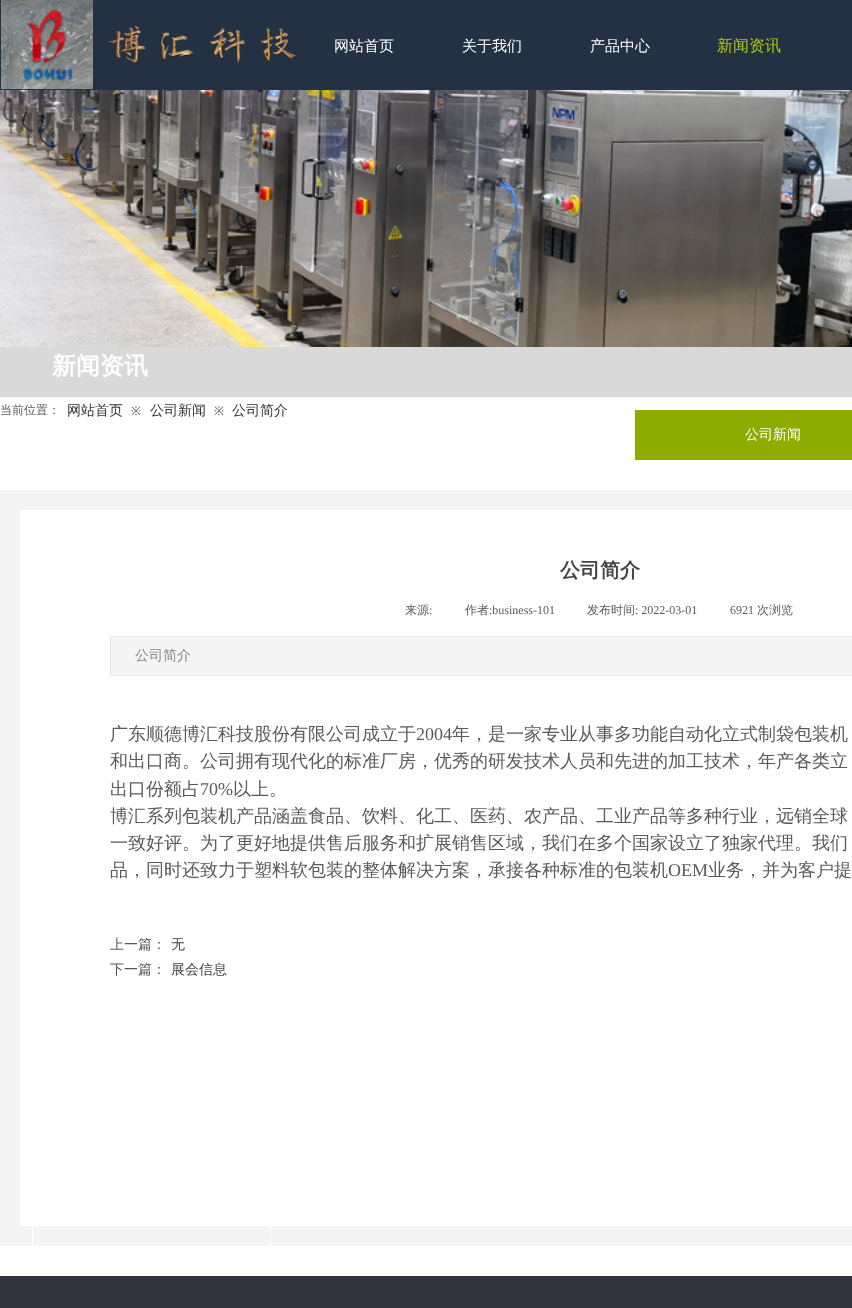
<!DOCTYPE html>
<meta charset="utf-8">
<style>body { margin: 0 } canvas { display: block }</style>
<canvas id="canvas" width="852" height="1308"></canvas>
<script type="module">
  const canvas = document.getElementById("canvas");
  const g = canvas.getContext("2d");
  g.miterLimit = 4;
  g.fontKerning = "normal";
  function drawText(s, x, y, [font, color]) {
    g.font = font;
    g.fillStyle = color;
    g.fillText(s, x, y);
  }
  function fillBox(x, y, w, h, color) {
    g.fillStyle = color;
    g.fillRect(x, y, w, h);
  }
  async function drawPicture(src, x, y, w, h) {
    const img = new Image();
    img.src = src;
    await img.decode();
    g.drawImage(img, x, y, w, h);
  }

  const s1 = ["500 15px WenQuanYi Zen Hei", "#FFFFFF"];
  const s2 = ["500 16px WenQuanYi Zen Hei", "#ABCD05"];
  const s3 = ["bold 24px WenQuanYi Zen Hei", "#FFFFFF"];
  const s4 = ["500 12px WenQuanYi Zen Hei", "#5A5A5A"];
  const s5 = ["500 14px WenQuanYi Zen Hei", "#333333"];
  const s6 = ["12px Noto Sans", "#5A5A5A"];
  const s7 = ["500 14px WenQuanYi Zen Hei", "#FFFFFF"];
  const s8 = ["bold 20px WenQuanYi Zen Hei", "#444444"];
  const s9 = ["12px Liberation Serif", "#5A5A5A"];
  const s10 = ["500 14px WenQuanYi Zen Hei", "#868686"];
  const s11 = ["500 18px WenQuanYi Zen Hei", "#5A5A5A"];
  const s12 = ["18px Liberation Serif", "#5A5A5A"];
  const s13 = ["500 14px WenQuanYi Zen Hei", "#5A5A5A"];
  const s14 = ["500 14px WenQuanYi Zen Hei", "#444444"];

  fillBox(0, 0, 852, 1308, "#FFFFFF");
  fillBox(0, 0, 852, 90, "#243142");
  await drawPicture("pic1.png", 1, 0, 92, 89);
  await drawPicture("pic2.png", 108, 26, 189, 37);
  drawText("网站首页", 334, 51, s1);
  drawText("关于我们", 462, 51, s1);
  drawText("产品中心", 590, 51, s1);
  drawText("新闻资讯", 717, 51, s2);
  await drawPicture("pic3.png", 0, 90, 852, 257);
  fillBox(0, 347, 852, 50, "#D9D9D9");
  drawText("新闻资讯", 52, 374, s3);
  drawText("当前位置：", 0, 414, s4);
  drawText("网站首页", 67, 415, s5);
  drawText("※", 131, 415, s6);
  drawText("公司新闻", 150, 415, s5);
  drawText("※", 214, 415, s6);
  drawText("公司简介", 232, 415, s5);
  fillBox(635, 410, 217, 50, "#8EAB00");
  drawText("公司新闻", 745, 439, s7);
  g.strokeStyle = "#F4F4F4";
  g.lineWidth = 20;
  g.strokeRect(10, 500, 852, 736);
  drawText("公司简介", 560, 577, s8);
  drawText("来源", 405, 614, s4);
  drawText(":", 429, 614, s9);
  drawText("作者", 465, 614, s4);
  drawText(":business-101", 489, 614, s9);
  drawText("发布时间", 587, 614, s4);
  drawText(": 2022-03-01", 635, 614, s9);
  drawText("6921", 730, 614, s9);
  drawText("次浏览", 757, 614, s4);
  g.fillStyle = "#F5F5F5";
  g.beginPath();
  g.rect(110.5, 636.5, 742, 39);
  g.fill();
  g.strokeStyle = "#E5E5E5";
  g.lineWidth = 1;
  g.stroke();
  drawText("公司简介", 135, 660, s10);
  drawText("广东顺德博汇科技股份有限公司成立于", 110, 740, s11);
  drawText("2004", 416, 740, s12);
  drawText("年，是一家专业从事多功能自动化立式制袋包装机", 452, 740, s11);
  drawText("和出口商。公司拥有现代化的标准厂房，优秀的研发技术人员和先进的加工技术，年产各类立", 110, 767, s11);
  drawText("出口份额占", 110, 795, s11);
  drawText("70%", 200, 795, s12);
  drawText("以上。", 233, 795, s11);
  drawText("博汇系列包装机产品涵盖食品、饮料、化工、医药、农产品、工业产品等多种行业，远销全球", 110, 822, s11);
  drawText("一致好评。为了更好地提供售后服务和扩展销售区域，我们在多个国家设立了独家代理。我们", 110, 849, s11);
  drawText("品，同时还致力于塑料软包装的整体解决方案，承接各种标准的包装机", 110, 876, s11);
  drawText("OEM", 668, 876, s12);
  drawText("业务，并为客户提", 708, 876, s11);
  drawText("上一篇：", 110, 949, s13);
  drawText("无", 171, 949, s14);
  drawText("下一篇：", 110, 974, s13);
  drawText("展会信息", 171, 974, s14);
  g.strokeStyle = "#FFFFFF";
  g.strokeRect(32.5, 1208.5, 238, 42);
  fillBox(0, 1276, 852, 32, "#30333D");
</script>
